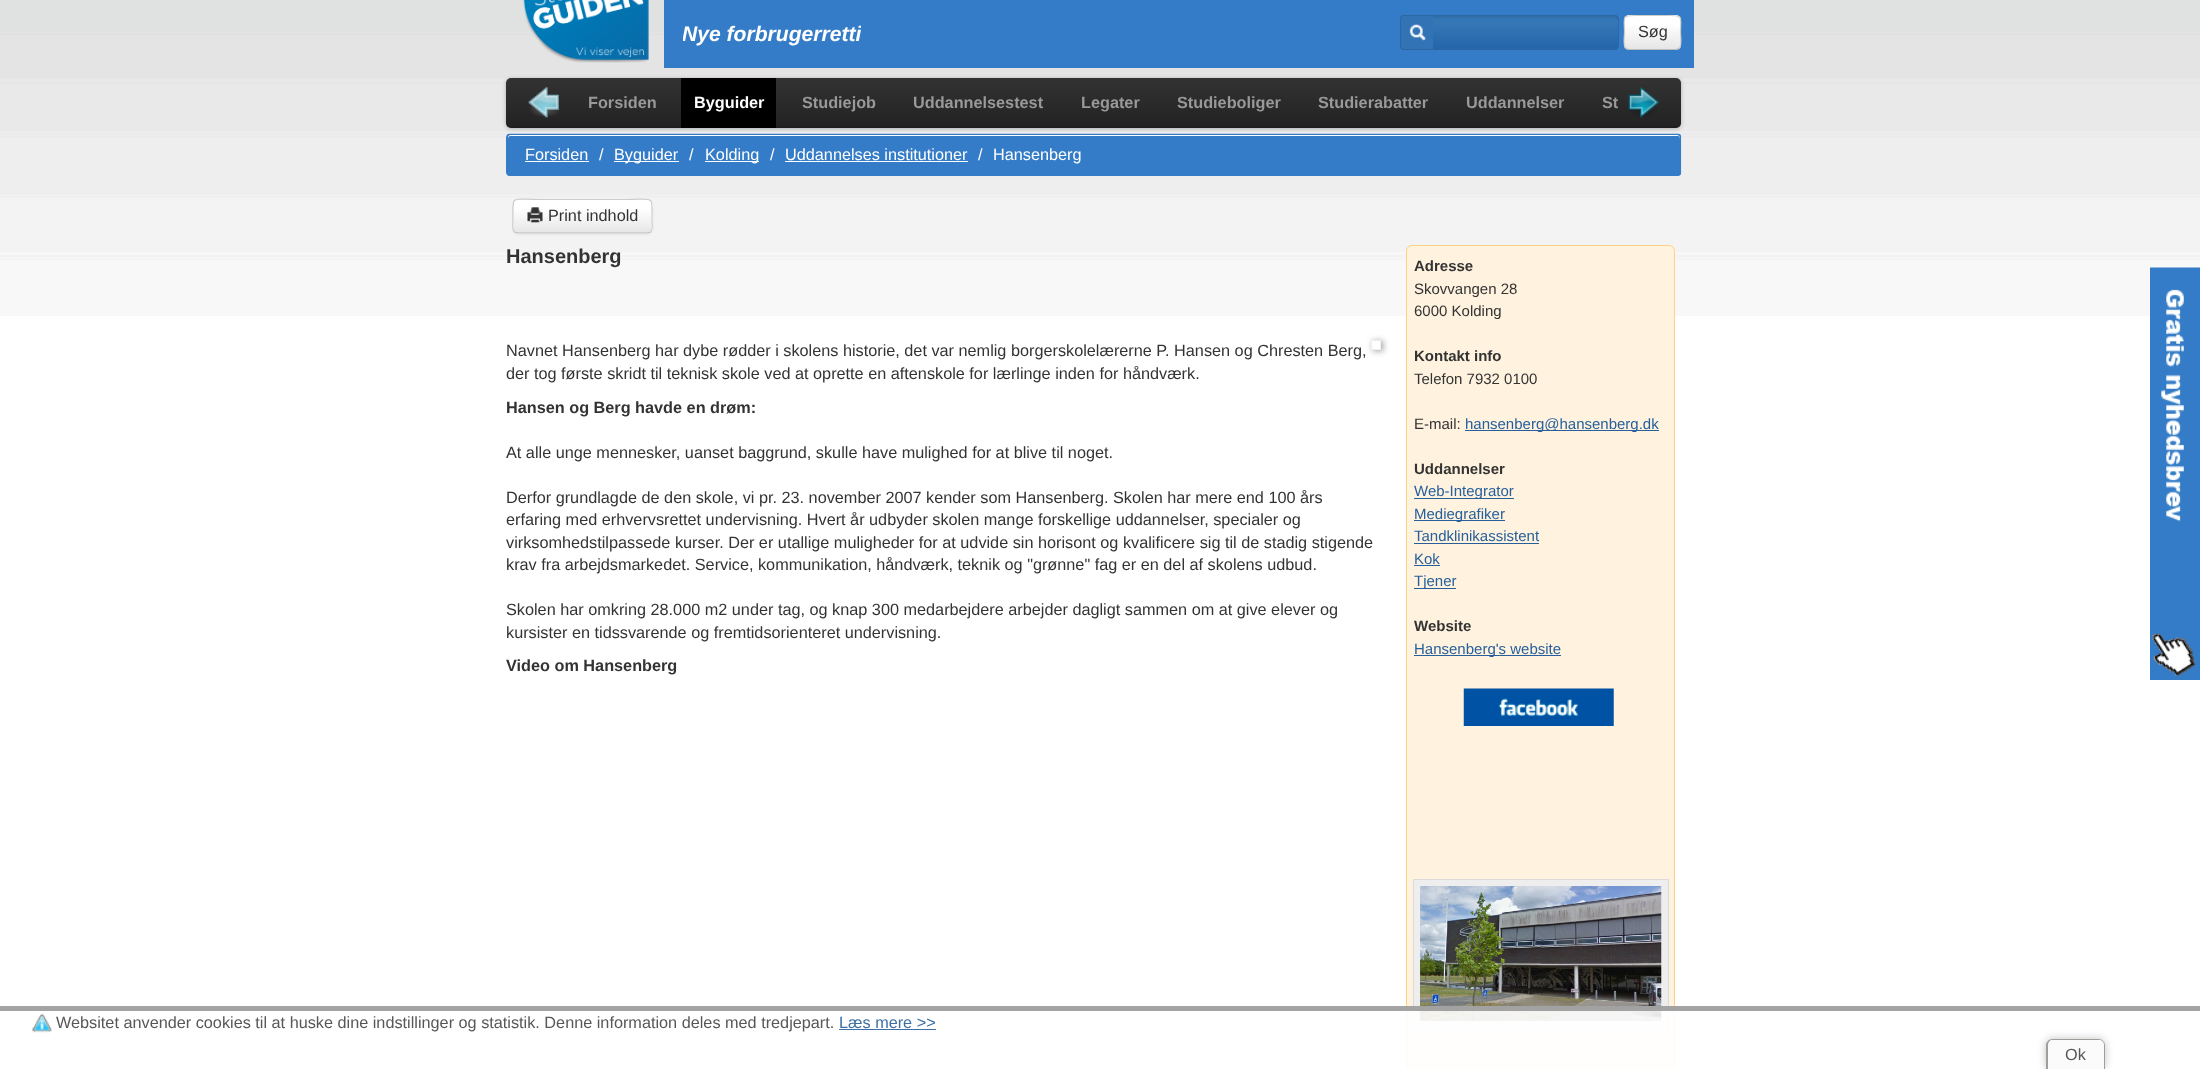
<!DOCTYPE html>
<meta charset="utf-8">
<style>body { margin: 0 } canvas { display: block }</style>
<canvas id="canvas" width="2200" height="1069"></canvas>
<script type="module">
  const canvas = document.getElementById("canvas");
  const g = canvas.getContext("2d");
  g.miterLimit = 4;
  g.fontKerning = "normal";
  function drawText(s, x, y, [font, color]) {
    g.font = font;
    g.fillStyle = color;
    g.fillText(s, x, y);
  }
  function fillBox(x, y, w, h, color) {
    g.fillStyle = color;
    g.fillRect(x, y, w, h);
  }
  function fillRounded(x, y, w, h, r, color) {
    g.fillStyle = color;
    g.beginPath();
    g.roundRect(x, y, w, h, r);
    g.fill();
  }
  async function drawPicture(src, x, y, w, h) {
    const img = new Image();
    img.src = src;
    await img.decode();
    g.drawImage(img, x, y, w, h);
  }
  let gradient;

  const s1 = ["italic bold 21.1px Liberation Sans", "#FFFFFF"];
  const s2 = ["16.25px Liberation Sans", "#333333"];
  const s3 = ["bold 16.25px Liberation Sans", "#999999"];
  const s4 = ["bold 16.25px Liberation Sans", "#FFFFFF"];
  const s5 = ["16.25px Liberation Sans", "#FFFFFF"];
  const s6 = ["bold 20px Liberation Sans", "#333333"];
  const s7 = ["bold 16.25px Liberation Sans", "#333333"];
  const s8 = ["bold 15px Liberation Sans", "#333333"];
  const s9 = ["15px Liberation Sans", "#333333"];
  const s10 = ["15px Liberation Sans", "#265F9B"];
  const s11 = ["16.25px Liberation Sans", "#575757"];
  const s12 = ["16.25px Liberation Sans", "#3C6FA5"];

  fillBox(0, 0, 2200, 1069, "#FFFFFF");
  await drawPicture("pic1.png", 0, 0, 2200, 316);
  await drawPicture("pic2.png", 523, 0, 126, 63);
  fillBox(664, 0, 1030, 68, "#347CC7");
  g.save();
  g.beginPath();
  g.rect(683, 11, 613, 38);
  g.clip();
  drawText("Nye forbrugerretti", 682, 41, s1);
  g.restore();
  fillBox(861, 25, 1, 3, "#347CC7");
  g.fillStyle = "#3273B5";
  g.beginPath();
  g.roundRect(1400, 15, 34, 35, [4, 0, 0, 4]);
  g.fill();
  g.fillStyle = "#2C67A2";
  g.beginPath();
  g.moveTo(1404, 15);
  g.lineTo(1434, 15);
  g.lineTo(1434, 50);
  g.lineTo(1404, 50);
  g.bezierCurveTo(1401.5, 50, 1400, 48.5, 1400, 46);
  g.lineTo(1400, 19);
  g.bezierCurveTo(1400, 16.5, 1401.5, 15, 1404, 15);
  g.closePath();
  g.moveTo(1404, 16);
  g.lineTo(1434, 16);
  g.lineTo(1434, 49);
  g.lineTo(1404, 49);
  g.bezierCurveTo(1402.5, 49, 1401, 47.5, 1401, 46);
  g.lineTo(1401, 19);
  g.bezierCurveTo(1401, 17.5, 1402.5, 16, 1404, 16);
  g.closePath();
  g.fill("evenodd");
  await drawPicture("pic3.png", 1409, 24, 17, 17);
  gradient = g.createLinearGradient(1525, 16, 1525, 49);
  gradient.addColorStop(0, "#3576B6");
  gradient.addColorStop(0.25, "#3576B6");
  gradient.addColorStop(1, "#2365A9");
  g.fillStyle = gradient;
  g.fillRect(1433, 16, 185, 33);
  g.fillStyle = "#316DA8";
  g.beginPath();
  g.moveTo(1433, 16);
  g.lineTo(1433, 18);
  g.lineTo(1615, 18);
  g.bezierCurveTo(1616, 18, 1618, 19, 1618, 20);
  g.bezierCurveTo(1618, 18, 1618, 16, 1616, 16);
  g.closePath();
  g.fill();
  g.fillStyle = "#2C67A2";
  g.beginPath();
  g.moveTo(1432, 15);
  g.lineTo(1615, 15);
  g.bezierCurveTo(1617, 15, 1619, 17, 1619, 19);
  g.lineTo(1619, 46);
  g.bezierCurveTo(1619, 48, 1617, 50, 1615, 50);
  g.lineTo(1432, 50);
  g.closePath();
  g.moveTo(1432, 16);
  g.lineTo(1615, 16);
  g.bezierCurveTo(1616, 16, 1618, 17, 1618, 19);
  g.lineTo(1618, 46);
  g.bezierCurveTo(1618, 48, 1616, 49, 1615, 49);
  g.lineTo(1432, 49);
  g.closePath();
  g.fill("evenodd");
  fillRounded(1624, 15, 57, 35, 5, "#FAFAFA");
  g.save();
  g.beginPath();
  g.roundRect(1624, 15, 57, 35, 5);
  g.clip();
  gradient = g.createLinearGradient(1653, 16, 1653, 49);
  gradient.addColorStop(0, "#FFFFFF");
  gradient.addColorStop(0.25, "#FFFFFF");
  gradient.addColorStop(1, "#E6E6E6");
  g.fillStyle = gradient;
  g.fillRect(1625, 16, 55, 33);
  g.restore();
  g.beginPath();
  g.moveTo(1679.5, 48);
  g.bezierCurveTo(1678.5, 49, 1677.5, 49.5, 1676, 49.5);
  g.lineTo(1629, 49.5);
  g.bezierCurveTo(1627.5, 49.5, 1626.5, 49, 1625.5, 48);
  g.strokeStyle = "#BBBBBB";
  g.lineWidth = 1.2;
  g.stroke();
  g.beginPath();
  g.moveTo(1625.5, 48);
  g.bezierCurveTo(1623, 45.5, 1624.5, 35.5, 1624.5, 32.5);
  g.bezierCurveTo(1624.5, 16.5, 1621, 15.5, 1636.5, 15.5);
  g.lineTo(1668.5, 15.5);
  g.bezierCurveTo(1684, 15.5, 1680.5, 16.5, 1680.5, 32.5);
  g.bezierCurveTo(1680.5, 35.5, 1682, 45.5, 1679.5, 48);
  g.strokeStyle = "#CCCCCC";
  g.stroke();
  drawText("Søg", 1638, 37, s2);
  g.fillStyle = "rgba(0, 0, 0, 0.25)";
  g.filter = "blur(2px)";
  g.beginPath();
  g.roundRect(506, 79, 1175, 50, 5);
  g.fill();
  g.filter = "none";
  gradient = g.createLinearGradient(1094, 77, 1094, 128);
  gradient.addColorStop(0, "#333333");
  gradient.addColorStop(1, "#222222");
  g.fillStyle = gradient;
  g.beginPath();
  g.roundRect(506, 78, 1175, 50, 5);
  g.fill();
  g.fillStyle = "rgba(0, 0, 0, 0.1)";
  g.beginPath();
  g.moveTo(506, 121);
  g.lineTo(506, 123);
  g.bezierCurveTo(506, 126, 508, 128, 511, 128);
  g.lineTo(1676, 128);
  g.bezierCurveTo(1679, 128, 1681, 126, 1681, 123);
  g.lineTo(1681, 121);
  g.bezierCurveTo(1681, 124, 1679, 126, 1676, 126);
  g.lineTo(511, 126);
  g.bezierCurveTo(508, 126, 506, 124, 506, 121);
  g.closePath();
  g.fill();
  await drawPicture("pic4.png", 528, 87, 32, 31);
  drawText("Forsiden", 588, 108, s3);
  fillBox(681, 78, 95, 50, "#000000");
  drawText("Byguider", 694, 108, s4);
  drawText("Studiejob", 802, 108, s3);
  drawText("Uddannelsestest", 913, 108, s3);
  drawText("Legater", 1081, 108, s3);
  drawText("Studieboliger", 1177, 108, s3);
  drawText("Studierabatter", 1318, 108, s3);
  drawText("Uddannelser", 1466, 108, s3);
  drawText("St", 1602, 108, s3);
  await drawPicture("pic5.png", 1628, 87, 31, 31);
  await drawPicture("pic6.png", 506, 133, 1176, 43);
  g.fillStyle = "#FFFFFF";
  g.beginPath();
  g.moveTo(510, 136);
  g.lineTo(1678, 136);
  g.bezierCurveTo(1679, 136, 1680, 137, 1680, 139);
  g.bezierCurveTo(1680, 137, 1680, 135, 1678, 135);
  g.lineTo(510, 135);
  g.bezierCurveTo(508, 135, 508, 137, 508, 139);
  g.bezierCurveTo(508, 137, 509, 136, 510, 136);
  g.closePath();
  g.fill();
  g.beginPath();
  g.roundRect(506.5, 134.5, 1174, 41, 3.5);
  g.strokeStyle = "#347CC5";
  g.lineWidth = 1;
  g.stroke();
  drawText("Forsiden", 525, 160, s5);
  fillBox(525, 161, 64, 1, "#FFFFFF");
  drawText("/", 599, 160, s5);
  fillBox(614, 161, 65, 1, "#FFFFFF");
  drawText("Byguider", 614, 160, s5);
  drawText("/", 689, 160, s5);
  fillBox(705, 161, 54, 1, "#FFFFFF");
  drawText("Kolding", 705, 160, s5);
  drawText("/", 770, 160, s5);
  drawText("Uddannelses institutioner", 785, 160, s5);
  fillBox(785, 161, 183, 1, "#FFFFFF");
  drawText("/", 978, 160, s5);
  drawText("Hansenberg", 993, 160, s5);
  g.fillStyle = "rgba(0, 0, 0, 0.05)";
  g.filter = "blur(1px)";
  g.beginPath();
  g.roundRect(513, 200, 140, 35, 5);
  g.fill();
  g.filter = "none";
  fillRounded(513, 199, 140, 35, 5, "#FAFAFA");
  gradient = g.createLinearGradient(583, 200, 583, 233);
  gradient.addColorStop(0, "#FFFFFF");
  gradient.addColorStop(0.25, "#FFFFFF");
  gradient.addColorStop(1, "#E6E6E6");
  g.fillStyle = gradient;
  g.fillRect(514, 200, 137, 33);
  g.beginPath();
  g.moveTo(650.5, 232);
  g.lineTo(648, 233);
  g.lineTo(539, 233);
  g.lineTo(517.5, 233);
  g.lineTo(514.5, 232);
  g.strokeStyle = "#BBBBBB";
  g.lineWidth = 1.2;
  g.stroke();
  g.beginPath();
  g.moveTo(514.5, 232);
  g.bezierCurveTo(511.5, 229, 513, 223.5, 513, 220.5);
  g.bezierCurveTo(513, 194, 509.5, 199.5, 539, 199.5);
  g.lineTo(626, 199.5);
  g.bezierCurveTo(655.5, 199.5, 652, 194, 652, 220.5);
  g.bezierCurveTo(652, 223.5, 653.5, 229, 650.5, 232);
  g.strokeStyle = "#CCCCCC";
  g.stroke();
  await drawPicture("pic7.png", 527, 207, 16, 16);
  drawText("Print indhold", 548, 221, s2);
  drawText("Hansenberg", 506, 263, s6);
  g.save();
  g.beginPath();
  g.moveTo(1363, 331);
  g.lineTo(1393, 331);
  g.lineTo(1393, 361);
  g.lineTo(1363, 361);
  g.closePath();
  g.moveTo(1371, 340);
  g.lineTo(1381, 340);
  g.lineTo(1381, 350);
  g.lineTo(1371, 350);
  g.closePath();
  g.clip("evenodd");
  g.fillStyle = "#999999";
  g.filter = "blur(3px)";
  g.beginPath();
  g.rect(1373, 341, 10, 10);
  g.fill();
  g.filter = "none";
  g.restore();
  drawText("Navnet Hansenberg har dybe rødder i skolens historie, det var nemlig borgerskolelærerne P. Hansen og Chresten Berg,", 506, 356, s2);
  drawText("der tog første skridt til teknisk skole ved at oprette en aftenskole for lærlinge inden for håndværk.", 506, 379, s2);
  g.strokeStyle = "#EFEFEF";
  g.lineWidth = 1;
  g.strokeRect(1371.5, 340.5, 9, 9);
  drawText("Hansen og Berg havde en drøm:", 506, 413, s7);
  drawText("At alle unge mennesker, uanset baggrund, skulle have mulighed for at blive til noget.", 506, 458, s2);
  drawText("Derfor grundlagde de den skole, vi pr. 23. november 2007 kender som Hansenberg. Skolen har mere end 100 års", 506, 503, s2);
  drawText("erfaring med erhvervsrettet undervisning. Hvert år udbyder skolen mange forskellige uddannelser, specialer og", 506, 525, s2);
  drawText("virksomhedstilpassede kurser. Der er utallige muligheder for at udvide sin horisont og kvalificere sig til de stadig stigende", 506, 548, s2);
  drawText("krav fra arbejdsmarkedet. Service, kommunikation, håndværk, teknik og \"grønne\" fag er en del af skolens udbud.", 506, 570, s2);
  drawText("Skolen har omkring 28.000 m2 under tag, og knap 300 medarbejdere arbejder dagligt sammen om at give elever og", 506, 615, s2);
  drawText("kursister en tidssvarende og fremtidsorienteret undervisning.", 506, 638, s2);
  drawText("Video om Hansenberg", 506, 671, s7);
  g.fillStyle = "#FFF3DF";
  g.beginPath();
  g.roundRect(1406.5, 245.5, 268, 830, 5.5);
  g.fill();
  g.strokeStyle = "#FFD182";
  g.stroke();
  drawText("Adresse", 1414, 271, s8);
  drawText("Skovvangen 28", 1414, 294, s9);
  drawText("6000 Kolding", 1414, 316, s9);
  drawText("Kontakt info", 1414, 361, s8);
  drawText("Telefon 7932 0100", 1414, 384, s9);
  drawText("E-mail:", 1414, 429, s9);
  fillBox(1465, 430, 194, 1, "#265F9B");
  drawText("hansenberg@hansenberg.dk", 1465, 429, s10);
  drawText("Uddannelser", 1414, 474, s8);
  fillBox(1414, 498, 100, 1, "#265F9B");
  drawText("Web-Integrator", 1414, 496, s10);
  fillBox(1414, 520, 91, 1, "#265F9B");
  drawText("Mediegrafiker", 1414, 519, s10);
  drawText("Tandklinikassistent", 1414, 541, s10);
  fillBox(1414, 543, 125, 1, "#265F9B");
  drawText("Kok", 1414, 564, s10);
  fillBox(1414, 565, 26, 1, "#265F9B");
  fillBox(1414, 588, 42, 1, "#265F9B");
  drawText("Tjener", 1414, 586, s10);
  drawText("Website", 1414, 631, s8);
  fillBox(1414, 655, 147, 1, "#265F9B");
  drawText("Hansenberg's website", 1414, 654, s10);
  await drawPicture("pic8.png", 1463, 688, 151, 38);
  g.fillStyle = "#EEEEEE";
  g.beginPath();
  g.rect(1413.5, 879.5, 255, 155);
  g.fill();
  g.strokeStyle = "#DADADA";
  g.stroke();
  await drawPicture("pic9.png", 1420, 886, 242, 135);
  await drawPicture("pic10.png", 2150, 267, 50, 413);
  fillBox(1406, 1006, 269, 63, "rgba(255, 255, 255, 0.9)");
  fillBox(0, 1006, 2200, 5, "rgba(153, 153, 153, 0.9)");
  await drawPicture("pic11.png", 32, 1013, 20, 20);
  drawText("Websitet anvender cookies til at huske dine indstillinger og statistik. Denne information deles med tredjepart.", 56, 1028, s11);
  drawText("Læs mere >>", 839, 1028, s12);
  fillBox(839, 1029, 97, 1, "#3C6FA5");
  g.fillStyle = "#C2C2C2";
  g.filter = "blur(4px)";
  g.beginPath();
  g.roundRect(2046, 1039, 59, 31, 6);
  g.fill();
  g.filter = "none";
  g.fillStyle = "#FBFBFB";
  g.beginPath();
  g.moveTo(2052, 1039);
  g.lineTo(2099, 1039);
  g.bezierCurveTo(2102.5, 1039, 2105, 1041.5, 2105, 1045);
  g.lineTo(2105, 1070);
  g.lineTo(2046, 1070);
  g.lineTo(2046, 1045);
  g.bezierCurveTo(2046, 1041.5, 2048.5, 1039, 2052, 1039);
  g.closePath();
  g.fill();
  g.fillStyle = "#9E9F98";
  g.beginPath();
  g.moveTo(2052, 1039);
  g.lineTo(2099, 1039);
  g.bezierCurveTo(2102, 1039, 2105, 1042, 2105, 1045);
  g.lineTo(2105, 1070);
  g.lineTo(2046, 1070);
  g.lineTo(2046, 1045);
  g.bezierCurveTo(2046, 1042, 2049, 1039, 2052, 1039);
  g.closePath();
  g.moveTo(2052, 1040);
  g.lineTo(2099, 1040);
  g.bezierCurveTo(2102, 1040, 2104, 1042, 2104, 1045);
  g.lineTo(2104, 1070);
  g.lineTo(2048, 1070);
  g.lineTo(2048, 1045);
  g.bezierCurveTo(2048, 1042, 2050, 1040, 2052, 1040);
  g.closePath();
  g.fill("evenodd");
  drawText("Ok", 2065, 1060, s11);
</script>
